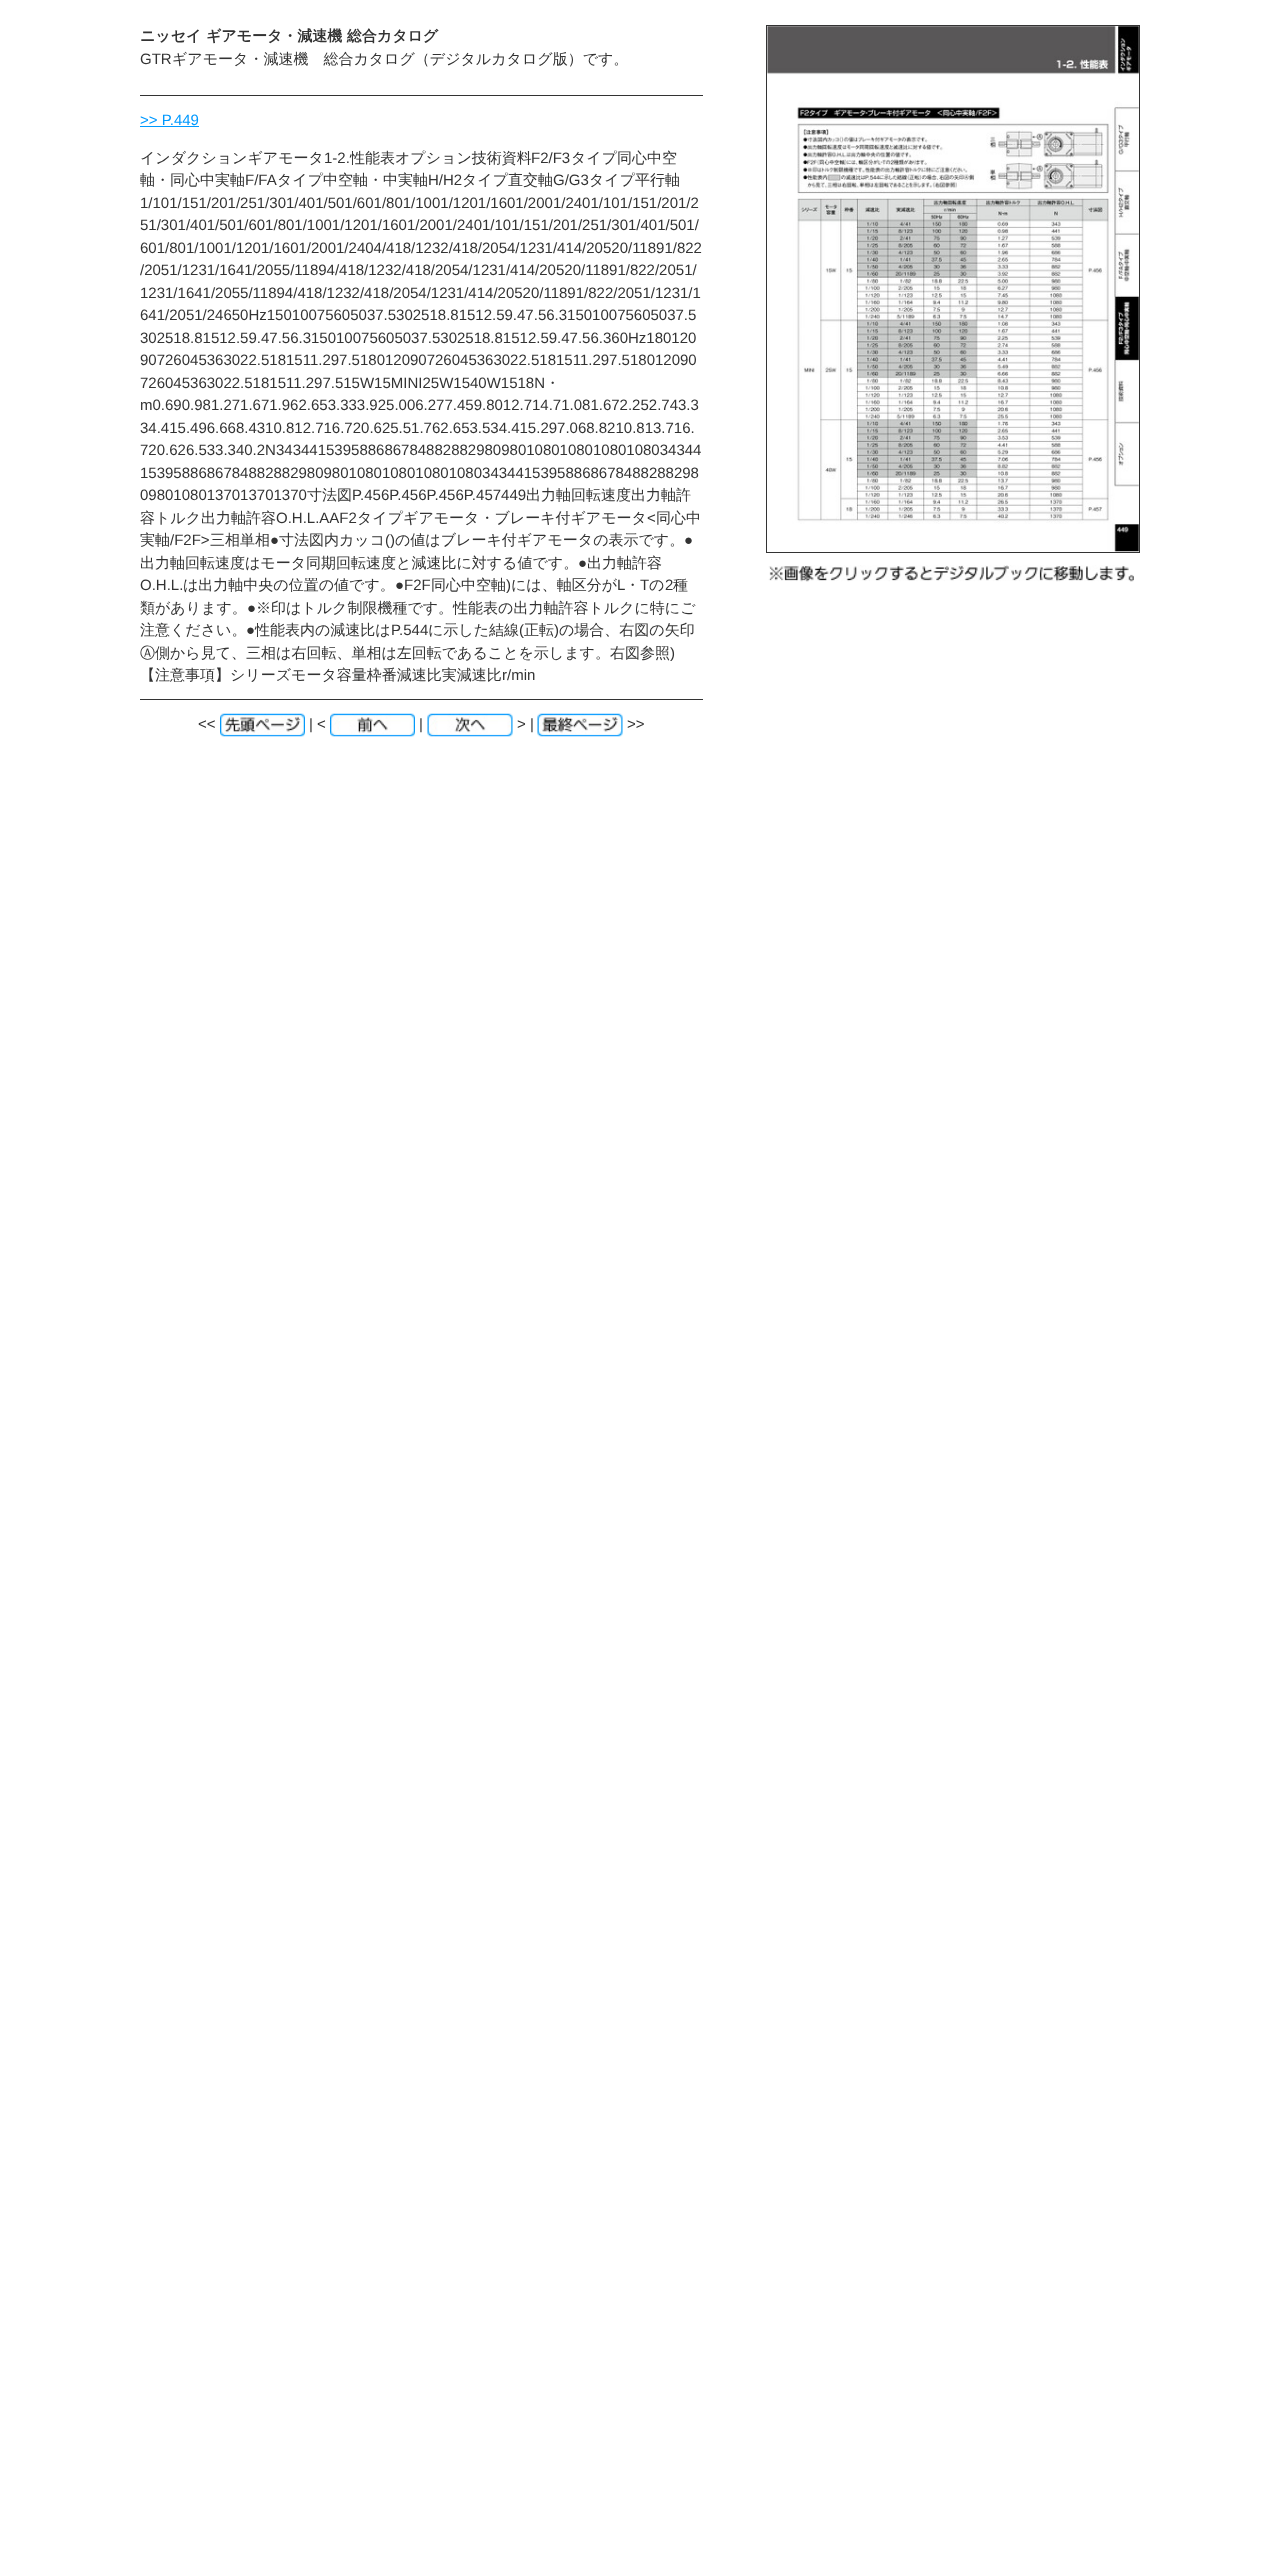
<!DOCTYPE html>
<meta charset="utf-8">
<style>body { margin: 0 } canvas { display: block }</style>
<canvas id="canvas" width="1279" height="2565"></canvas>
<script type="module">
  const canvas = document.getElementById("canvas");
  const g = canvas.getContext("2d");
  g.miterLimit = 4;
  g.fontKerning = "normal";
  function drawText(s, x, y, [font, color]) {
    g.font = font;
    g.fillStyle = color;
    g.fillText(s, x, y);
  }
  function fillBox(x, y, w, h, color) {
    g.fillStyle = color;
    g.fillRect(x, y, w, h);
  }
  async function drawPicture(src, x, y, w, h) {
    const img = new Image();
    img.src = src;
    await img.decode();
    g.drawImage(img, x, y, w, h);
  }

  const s1 = ["bold 15px WenQuanYi Zen Hei", "#333333"];
  const s2 = ["15px Liberation Sans", "#333333"];
  const s3 = ["500 15px WenQuanYi Zen Hei", "#333333"];
  const s4 = ["15px Liberation Sans", "#0099FF"];

  fillBox(0, 0, 1279, 2565, "#FFFFFF");
  drawText("ニッセイ ギアモータ・減速機 総合カタログ", 140, 41, s1);
  drawText("GTR", 140, 64, s2);
  drawText("ギアモータ・減速機　総合カタログ（デジタルカタログ版）です。", 172, 64, s3);
  fillBox(140, 95, 563, 1, "#333333");
  fillBox(140, 699, 563, 1, "#333333");
  drawText(">> P.449", 140, 125, s4);
  fillBox(140, 126, 59, 1, "#0099FF");
  drawText("インダクションギアモータ", 140, 163, s3);
  drawText("1-2.", 324, 163, s2);
  drawText("性能表オプション技術資料", 350, 163, s3);
  drawText("F2/F3", 531, 163, s2);
  drawText("タイプ同心中空", 571, 163, s3);
  drawText("軸・同心中実軸", 140, 185, s3);
  drawText("F/FA", 245, 185, s2);
  drawText("タイプ中空軸・中実軸", 277, 185, s3);
  drawText("H/H2", 428, 185, s2);
  drawText("タイプ直交軸", 462, 185, s3);
  drawText("G/G3", 553, 185, s2);
  drawText("タイプ平行軸", 589, 185, s3);
  drawText("1/101/151/201/251/301/401/501/601/801/1001/1201/1601/2001/2401/101/151/201/2", 140, 208, s2);
  drawText("51/301/401/501/601/801/1001/1201/1601/2001/2401/101/151/201/251/301/401/501/", 140, 230, s2);
  drawText("601/801/1001/1201/1601/2001/2404/418/1232/418/2054/1231/414/20520/11891/822", 140, 253, s2);
  drawText("/2051/1231/1641/2055/11894/418/1232/418/2054/1231/414/20520/11891/822/2051/", 140, 275, s2);
  drawText("1231/1641/2055/11894/418/1232/418/2054/1231/414/20520/11891/822/2051/1231/1", 140, 298, s2);
  drawText("641/2051/24650Hz15010075605037.5302518.81512.59.47.56.315010075605037.5", 140, 320, s2);
  drawText("302518.81512.59.47.56.315010075605037.5302518.81512.59.47.56.360Hz180120", 140, 343, s2);
  drawText("90726045363022.5181511.297.518012090726045363022.5181511.297.518012090", 140, 365, s2);
  drawText("726045363022.5181511.297.515W15MINI25W1540W1518N", 140, 388, s2);
  drawText("・", 545, 388, s3);
  drawText("m0.690.981.271.671.962.653.333.925.006.277.459.8012.714.71.081.672.252.743.3", 140, 410, s2);
  drawText("34.415.496.668.4310.812.716.720.625.51.762.653.534.415.297.068.8210.813.716.", 140, 433, s2);
  drawText("720.626.533.340.2N343441539588686784882882980980108010801080108034344", 140, 455, s2);
  drawText("1539588686784882882980980108010801080108034344153958868678488288298", 140, 478, s2);
  drawText("09801080137013701370", 140, 500, s2);
  drawText("寸法図", 307, 500, s3);
  drawText("P.456P.456P.456P.457449", 352, 500, s2);
  drawText("出力軸回転速度出力軸許", 526, 500, s3);
  drawText("容トルク出力軸許容", 140, 523, s3);
  drawText("O.H.L.AAF2", 276, 523, s2);
  drawText("タイプギアモータ・ブレーキ付ギアモータ", 357, 523, s3);
  drawText("<", 647, 523, s2);
  drawText("同心中", 656, 523, s3);
  drawText("実軸", 140, 545, s3);
  drawText("/F2F>", 170, 545, s2);
  drawText("三相単相", 210, 545, s3);
  drawText("●", 270, 545, s2);
  drawText("寸法図内カッコ", 279, 545, s3);
  drawText("()", 385, 545, s2);
  drawText("の値はブレーキ付ギアモータの表示です。", 395, 545, s3);
  drawText("●", 684, 545, s2);
  drawText("出力軸回転速度はモータ同期回転速度と減速比に対する値です。", 140, 568, s3);
  drawText("●", 578, 568, s2);
  drawText("出力軸許容", 587, 568, s3);
  drawText("O.H.L.", 140, 590, s2);
  drawText("は出力軸中央の位置の値です。", 183, 590, s3);
  drawText("●F2F", 395, 590, s2);
  drawText("同心中空軸", 431, 590, s3);
  drawText(")", 506, 590, s2);
  drawText("には、軸区分が", 511, 590, s3);
  drawText("L", 617, 590, s2);
  drawText("・", 625, 590, s3);
  drawText("T", 640, 590, s2);
  drawText("の", 649, 590, s3);
  drawText("2", 665, 590, s2);
  drawText("種", 673, 590, s3);
  drawText("類があります。", 140, 613, s3);
  drawText("●", 247, 613, s2);
  drawText("※印はトルク制限機種です。性能表の出力軸許容トルクに特にご", 256, 613, s3);
  drawText("注意ください。", 140, 635, s3);
  drawText("●", 246, 635, s2);
  drawText("性能表内の減速比は", 255, 635, s3);
  drawText("P.544", 391, 635, s2);
  drawText("に示した結線", 428, 635, s3);
  drawText("(", 519, 635, s2);
  drawText("正転", 524, 635, s3);
  drawText(")", 554, 635, s2);
  drawText("の場合、右図の矢印", 559, 635, s3);
  drawText("Ⓐ側から見て、三相は右回転、単相は左回転であることを示します。右図参照", 140, 658, s3);
  drawText(")", 670, 658, s2);
  drawText("【注意事項】シリーズモータ容量枠番減速比実減速比", 140, 680, s3);
  drawText("r/min", 502, 680, s2);
  drawText("<<", 198, 729, s2);
  await drawPicture("pic1.png", 220, 713, 85, 24);
  drawText("| <", 309, 729, s2);
  await drawPicture("pic2.png", 330, 713, 85, 24);
  drawText("|", 419, 729, s2);
  await drawPicture("pic3.png", 427, 713, 86, 24);
  drawText("> |", 517, 729, s2);
  await drawPicture("pic4.png", 537, 713, 86, 24);
  drawText(">>", 627, 729, s2);
  g.strokeStyle = "#333333";
  g.strokeRect(766.5, 25.5, 373, 527);
  await drawPicture("pic5.png", 767, 26, 372, 526);
  await drawPicture("pic6.png", 768, 565, 366, 17);
</script>
